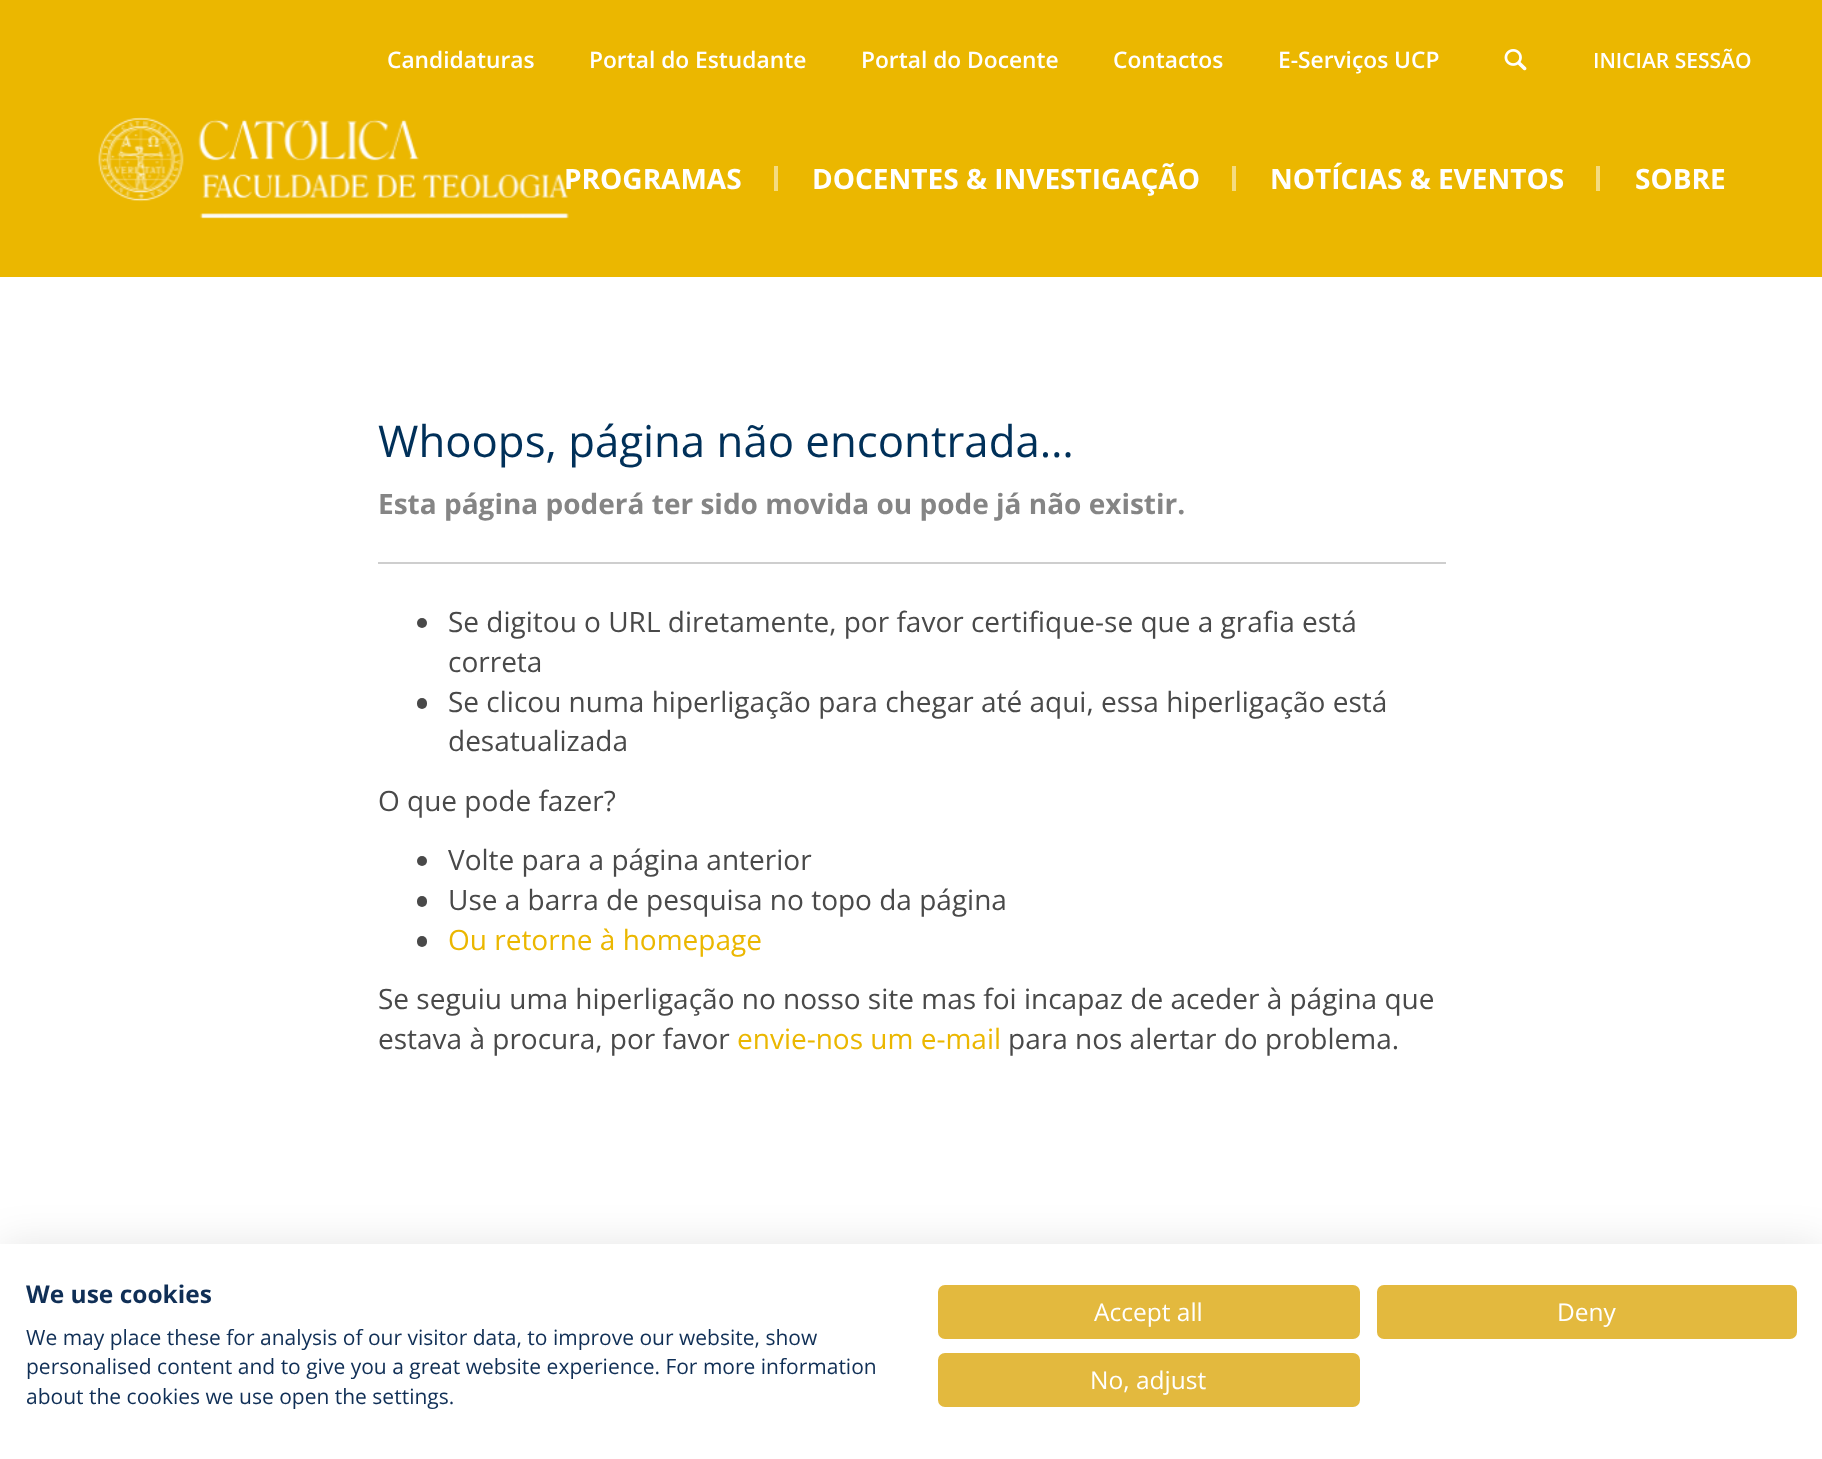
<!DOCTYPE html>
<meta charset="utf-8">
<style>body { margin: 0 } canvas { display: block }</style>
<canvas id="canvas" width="1822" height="1459"></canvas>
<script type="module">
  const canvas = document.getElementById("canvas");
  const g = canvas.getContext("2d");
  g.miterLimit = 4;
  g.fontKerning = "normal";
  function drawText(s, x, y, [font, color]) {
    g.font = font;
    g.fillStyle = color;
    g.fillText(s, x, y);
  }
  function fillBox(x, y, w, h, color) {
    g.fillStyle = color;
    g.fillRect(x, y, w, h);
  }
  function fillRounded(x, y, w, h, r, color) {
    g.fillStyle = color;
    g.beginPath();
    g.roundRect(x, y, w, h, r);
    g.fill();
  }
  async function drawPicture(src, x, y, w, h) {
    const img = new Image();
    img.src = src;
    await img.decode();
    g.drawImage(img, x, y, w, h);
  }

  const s1 = ["600 22.75px Open Sans", "#FFFFFF"];
  const s2 = ["600 21px Open Sans", "#FFFFFF"];
  const s3 = ["bold 28px Open Sans", "#FFFFFF"];
  const s4 = ["43.75px Open Sans", "#003059"];
  const s5 = ["bold 28px Open Sans", "#858585"];
  const s6 = ["28px Open Sans", "#494949"];
  const s7 = ["28px Open Sans", "#EBB700"];
  const s8 = ["bold 24.5px Open Sans", "#102F56"];
  const s9 = ["21px Open Sans", "#102F56"];
  const s10 = ["24.5px Open Sans", "#FFFFFF"];

  fillBox(0, 0, 1822, 1459, "#FFFFFF");
  fillBox(0, 0, 1822, 277, "#EBB700");
  drawText("Candidaturas", 387, 68, s1);
  drawText("Portal do Estudante", 589, 68, s1);
  drawText("Portal do Docente", 861, 68, s1);
  drawText("Contactos", 1113, 68, s1);
  drawText("E-Serviços UCP", 1278, 68, s1);
  await drawPicture("pic1.png", 1504, 49, 23, 22);
  drawText("INICIAR SESSÃO", 1593, 68, s2);
  drawText("PROGRAMAS", 564, 189, s3);
  await drawPicture("pic2.png", 98, 117, 471, 102);
  fillBox(774, 166, 4, 25, "#F5DB80");
  drawText("DOCENTES & INVESTIGAÇÃO", 812, 189, s3);
  fillBox(1232, 166, 4, 25, "#F5DB80");
  drawText("NOTÍCIAS & EVENTOS", 1270, 189, s3);
  fillBox(1596, 166, 4, 25, "#F5DB80");
  drawText("SOBRE", 1635, 189, s3);
  drawText("Whoops, página não encontrada…", 378, 457, s4);
  drawText("Esta página poderá ter sido movida ou pode já não existir.", 378, 514, s5);
  fillBox(378, 562, 1068, 2, "#CECECE");
  g.fillStyle = "#494949";
  g.beginPath();
  g.arc(422, 623, 5, 0, Math.PI * 2);
  g.fill();
  drawText("Se digitou o URL diretamente, por favor certifique-se que a grafia está", 448, 632, s6);
  drawText("correta", 448, 672, s6);
  fillRounded(417, 698, 10, 11, 5, "#494949");
  drawText("Se clicou numa hiperligação para chegar até aqui, essa hiperligação está", 448, 712, s6);
  drawText("desatualizada", 448, 751, s6);
  drawText("O que pode fazer?", 378, 811, s6);
  g.beginPath();
  g.arc(422, 861, 5, 0, Math.PI * 2);
  g.fill();
  drawText("Volte para a página anterior", 448, 870, s6);
  fillRounded(417, 896, 10, 11, 5, "#494949");
  drawText("Use a barra de pesquisa no topo da página", 448, 910, s6);
  fillRounded(417, 936, 10, 11, 5, "#494949");
  drawText("Ou retorne à homepage", 448, 950, s7);
  drawText("Se seguiu uma hiperligação no nosso site mas foi incapaz de aceder à página que", 378, 1009, s6);
  drawText("estava à procura, por favor", 378, 1049, s6);
  drawText("envie-nos um e-mail", 737, 1049, s7);
  drawText("para nos alertar do problema.", 1008, 1049, s6);
  g.fillStyle = "rgba(0, 0, 0, 0.1)";
  g.filter = "blur(21px)";
  g.beginPath();
  g.rect(0, 1244, 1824, 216);
  g.fill();
  g.filter = "none";
  fillBox(0, 1244, 1822, 215, "#FFFFFF");
  drawText("We use cookies", 26, 1303, s8);
  drawText("We may place these for analysis of our visitor data, to improve our website, show", 26, 1345, s9);
  drawText("personalised content and to give you a great website experience. For more information", 26, 1374, s9);
  drawText("about the cookies we use open the settings.", 26, 1404, s9);
  g.fillStyle = "#E3B93E";
  g.beginPath();
  g.roundRect(939, 1286, 420, 52, 6);
  g.fill();
  g.strokeStyle = "#E3B93E";
  g.lineWidth = 2;
  g.stroke();
  drawText("Accept all", 1094, 1321, s10);
  g.fillStyle = "#E3B93E";
  g.beginPath();
  g.roundRect(1378, 1286, 418, 52, 6);
  g.fill();
  g.stroke();
  drawText("Deny", 1557, 1321, s10);
  g.fillStyle = "#E3B93E";
  g.beginPath();
  g.roundRect(939, 1354, 420, 52, 6);
  g.fill();
  g.stroke();
  drawText("No, adjust", 1090, 1389, s10);
</script>
